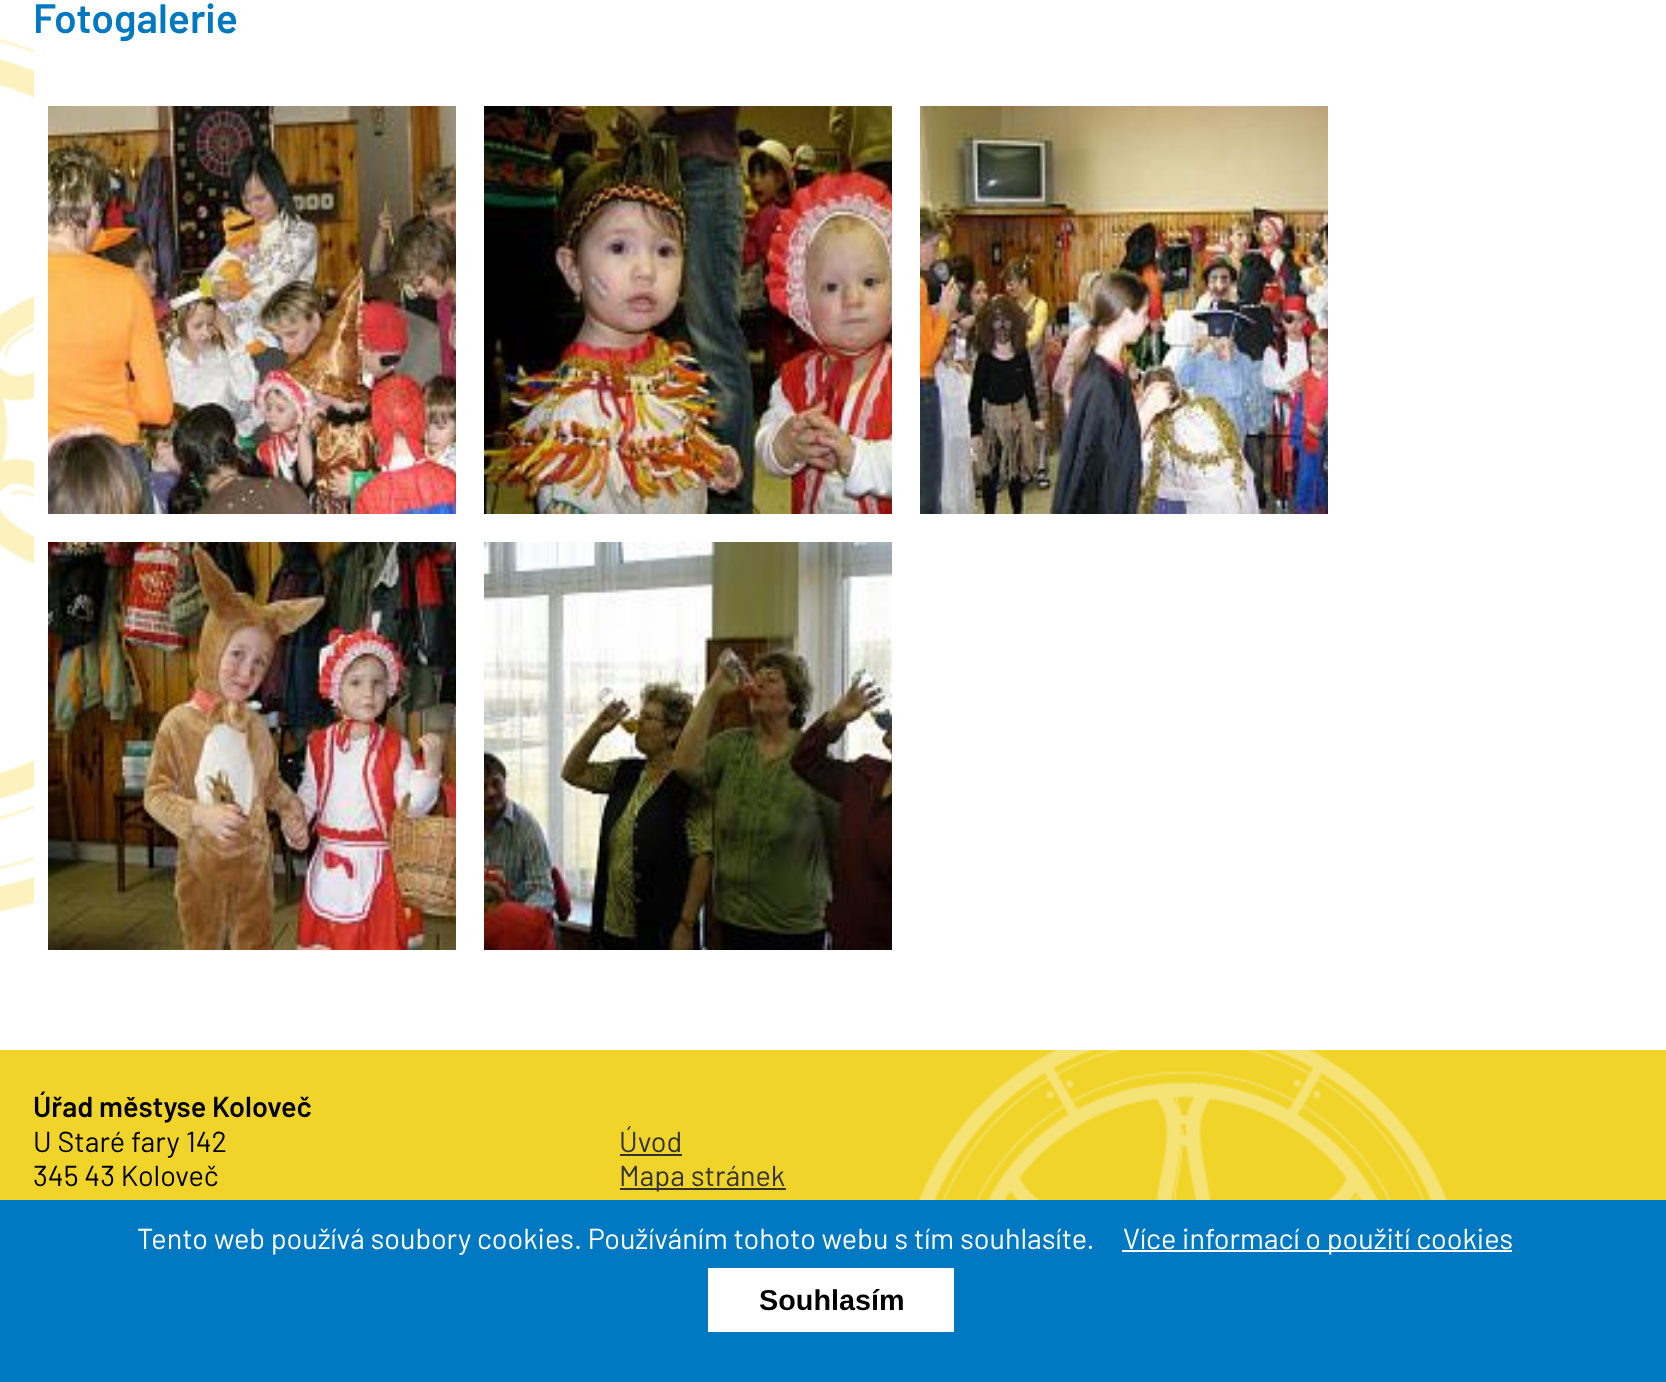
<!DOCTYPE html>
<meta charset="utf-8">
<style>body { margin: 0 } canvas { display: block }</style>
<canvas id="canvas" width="1666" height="1382"></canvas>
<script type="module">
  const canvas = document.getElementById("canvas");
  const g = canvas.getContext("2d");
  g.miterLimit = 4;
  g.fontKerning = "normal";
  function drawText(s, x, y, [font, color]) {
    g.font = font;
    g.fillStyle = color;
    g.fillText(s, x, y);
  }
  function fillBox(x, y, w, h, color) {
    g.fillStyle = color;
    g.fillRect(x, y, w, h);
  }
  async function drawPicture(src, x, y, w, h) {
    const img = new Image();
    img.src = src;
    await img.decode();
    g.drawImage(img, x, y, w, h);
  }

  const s1 = ["600 41px Barlow", "#0079C2"];
  const s2 = ["600 28.8px Barlow", "#000000"];
  const s3 = ["28.8px Barlow", "#000000"];
  const s4 = ["28.8px Barlow", "#333333"];
  const s5 = ["28.8px Barlow", "#FFFFFF"];
  const s6 = ["bold 28.8px Liberation Sans", "#000000"];

  fillBox(0, 0, 1666, 1382, "#FFFFFF");
  await drawPicture("pic1.png", 0, 37, 34, 876);
  drawText("Fotogalerie", 33, 33, s1);
  await drawPicture("pic2.png", 48, 106, 408, 408);
  await drawPicture("pic3.png", 484, 106, 408, 408);
  await drawPicture("pic4.png", 920, 106, 408, 408);
  await drawPicture("pic5.png", 48, 542, 408, 408);
  await drawPicture("pic6.png", 484, 542, 408, 408);
  fillBox(0, 1050, 1666, 150, "#F1D42A");
  await drawPicture("pic7.png", 918, 1050, 530, 150);
  drawText("Úřad městyse Koloveč", 33, 1117, s2);
  drawText("U Staré fary 142", 33, 1152, s3);
  drawText("345 43 Koloveč", 33, 1186, s3);
  drawText("Úvod", 619, 1152, s4);
  fillBox(620, 1154, 62, 2, "#333333");
  fillBox(620, 1188, 166, 2, "#333333");
  drawText("Mapa stránek", 619, 1186, s4);
  fillBox(0, 1200, 1666, 182, "#0079C2");
  drawText("Tento web používá soubory cookies. Používáním tohoto webu s tím souhlasíte.", 137, 1249, s5);
  fillBox(1122, 1250, 390, 2, "#FFFFFF");
  drawText("Více informací o použití cookies", 1123, 1249, s5);
  fillBox(708, 1268, 246, 64, "#FFFFFF");
  drawText("Souhlasím", 759, 1310, s6);
</script>
